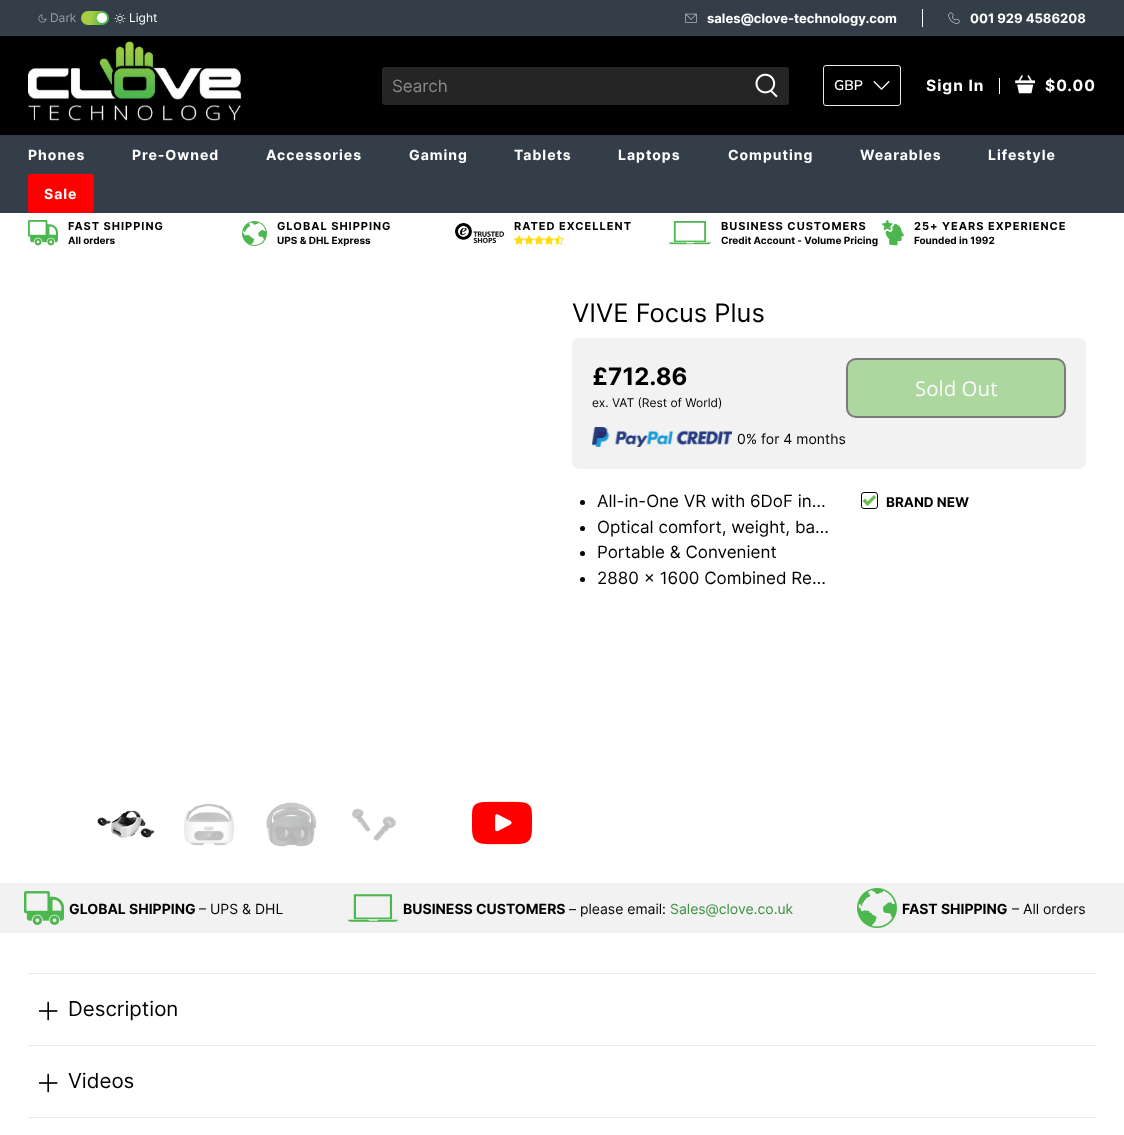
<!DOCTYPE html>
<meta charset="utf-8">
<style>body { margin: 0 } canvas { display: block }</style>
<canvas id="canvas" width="1124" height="1135"></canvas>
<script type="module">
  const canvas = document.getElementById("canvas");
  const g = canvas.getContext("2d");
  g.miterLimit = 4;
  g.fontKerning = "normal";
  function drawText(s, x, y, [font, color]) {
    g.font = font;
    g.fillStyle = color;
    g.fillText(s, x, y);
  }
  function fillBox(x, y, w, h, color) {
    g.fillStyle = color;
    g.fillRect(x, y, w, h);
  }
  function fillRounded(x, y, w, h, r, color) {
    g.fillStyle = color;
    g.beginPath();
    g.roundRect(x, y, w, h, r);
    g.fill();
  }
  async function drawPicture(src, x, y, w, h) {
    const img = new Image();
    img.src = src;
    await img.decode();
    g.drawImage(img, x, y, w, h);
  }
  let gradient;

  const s1 = ["12px Inter", "#999FA4"];
  const s2 = ["12px Inter", "#FFFFFF"];
  const s3 = ["bold 13px Inter", "#FFFFFF"];
  const s4 = ["17px Inter", "#898989"];
  const s5 = ["600 14px Nunito", "#FFFFFF"];
  const s6 = ["bold 15.5px Inter", "#FFFFFF"];
  const s7 = ["bold 14px Inter", "#FFFFFF"];
  const s8 = ["bold 11px Inter", "#000000"];
  const s9 = ["bold 10px Inter", "#000000"];
  const s10 = ["25.5px Inter", "#000000"];
  const s11 = ["bold 24px Inter", "#000000"];
  const s12 = ["12px Inter", "#000000"];
  const s13 = ["20.5px Open Sans", "#F9F9F9"];
  const s14 = ["14px Inter", "#000000"];
  const s15 = ["17px Inter", "#000000"];
  const s16 = ["bold 13.5px Inter", "#000000"];
  const s17 = ["bold 14px Inter", "#000000"];
  const s18 = ["14px Inter", "#3A913F"];
  const s19 = ["20.5px Inter", "#000000"];

  fillBox(0, 0, 1124, 1135, "#FFFFFF");
  fillBox(0, 0, 1124, 36, "#333E48");
  await drawPicture("pic1.png", 38, 14, 9, 9);
  drawText("Dark", 50, 22, s1);
  gradient = g.createLinearGradient(80, 15, 110, 21);
  gradient.addColorStop(0.38, "#A4CE45");
  gradient.addColorStop(0.76, "#4EB74F");
  g.fillStyle = gradient;
  g.beginPath();
  g.roundRect(81, 11, 28, 14, 7);
  g.fill();
  g.fillStyle = "#FFFFFF";
  g.beginPath();
  g.arc(102, 18, 5, 0, Math.PI * 2);
  g.fill();
  await drawPicture("pic2.png", 114, 13, 12, 11);
  drawText("Light", 129, 22, s2);
  await drawPicture("pic3.png", 685, 13, 12, 10);
  drawText("sales@clove-technology.com", 707, 23, s3);
  fillBox(922, 9, 1, 18, "#FFFFFF");
  await drawPicture("pic4.png", 948, 12, 12, 12);
  drawText("001 929 4586208", 970, 23, s3);
  fillBox(0, 36, 1124, 99, "#000000");
  await drawPicture("pic5.png", 28, 41, 214, 80);
  g.fillStyle = "#252525";
  g.beginPath();
  g.roundRect(382, 67, 363, 38, [3, 0, 0, 3]);
  g.fill();
  drawText("Search", 392, 92, s4);
  g.fillStyle = "#252525";
  g.beginPath();
  g.roundRect(744, 67, 45, 38, [0, 3, 3, 0]);
  g.fill();
  await drawPicture("pic6.png", 755, 73, 23, 25);
  g.beginPath();
  g.roundRect(823.5, 65.5, 77, 40, 2.5);
  g.strokeStyle = "#EAEAEA";
  g.stroke();
  drawText("GBP", 834, 90, s5);
  await drawPicture("pic7.png", 873, 81, 17, 9);
  g.letterSpacing = "1px";
  drawText("Sign In", 926, 91, s6);
  fillBox(999, 78, 1, 16, "#FFFFFF");
  await drawPicture("pic8.png", 1015, 75, 20, 19);
  drawText("$0.00", 1045, 91, s6);
  fillBox(0, 135, 1124, 78, "#333E48");
  drawText("Phones", 28, 160, s7);
  drawText("Pre-Owned", 132, 160, s7);
  drawText("Accessories", 266, 160, s7);
  drawText("Gaming", 409, 160, s7);
  drawText("Tablets", 514, 160, s7);
  drawText("Laptops", 618, 160, s7);
  drawText("Computing", 728, 160, s7);
  drawText("Wearables", 860, 160, s7);
  drawText("Lifestyle", 988, 160, s7);
  fillRounded(28, 174, 66, 39, 3, "#FF0000");
  drawText("Sale", 44, 199, s7);
  await drawPicture("pic9.png", 28, 220, 30, 26);
  drawText("FAST SHIPPING", 68, 230, s8);
  g.letterSpacing = "0px";
  drawText("All orders", 68, 244, s9);
  await drawPicture("pic10.png", 242, 221, 25, 25);
  g.letterSpacing = "1px";
  drawText("GLOBAL SHIPPING", 277, 230, s8);
  g.letterSpacing = "0px";
  drawText("UPS & DHL Express", 277, 244, s9);
  await drawPicture("pic11.png", 455, 222, 50, 21);
  g.letterSpacing = "1px";
  drawText("RATED EXCELLENT", 514, 230, s8);
  await drawPicture("pic12.png", 514, 235, 10, 10);
  await drawPicture("pic12.png", 524, 235, 10, 10);
  await drawPicture("pic12.png", 534, 235, 10, 10);
  await drawPicture("pic12.png", 544, 235, 10, 10);
  await drawPicture("pic13.png", 554, 235, 10, 10);
  await drawPicture("pic14.png", 669, 221, 42, 24);
  drawText("BUSINESS CUSTOMERS", 721, 230, s8);
  g.letterSpacing = "0px";
  drawText("Credit Account - Volume Pricing", 721, 244, s9);
  await drawPicture("pic15.png", 882, 220, 22, 26);
  g.letterSpacing = "1px";
  drawText("25+ YEARS EXPERIENCE", 914, 230, s8);
  g.letterSpacing = "0px";
  drawText("Founded in 1992", 914, 244, s9);
  drawText("VIVE Focus Plus", 572, 322, s10);
  fillRounded(572, 338, 514, 131, 7, "#F2F2F2");
  drawText("£712.86", 592, 385, s11);
  drawText("ex. VAT (Rest of World)", 592, 407, s12);
  g.fillStyle = "#ACD89F";
  g.beginPath();
  g.roundRect(847, 359, 218, 58, 9);
  g.fill();
  g.strokeStyle = "#797979";
  g.lineWidth = 2;
  g.stroke();
  drawText("Sold Out", 915, 396, s13);
  await drawPicture("pic16.png", 592, 427, 140, 20);
  drawText("0% for 4 months", 737, 444, s14);
  g.beginPath();
  g.arc(582.5, 502.5, 2.5, 0, Math.PI * 2);
  g.fill();
  drawText("All-in-One VR with 6DoF in…", 597, 507, s15);
  g.beginPath();
  g.arc(582.5, 528.5, 2.5, 0, Math.PI * 2);
  g.fill();
  drawText("Optical comfort, weight, ba…", 597, 533, s15);
  g.beginPath();
  g.arc(582.5, 553.5, 2.5, 0, Math.PI * 2);
  g.fill();
  drawText("Portable & Convenient", 597, 558, s15);
  g.beginPath();
  g.arc(582.5, 579.5, 2.5, 0, Math.PI * 2);
  g.fill();
  drawText("2880 x 1600 Combined Re…", 597, 584, s15);
  g.beginPath();
  g.roundRect(861.5, 492.5, 16, 16, 2.5);
  g.strokeStyle = "#000000";
  g.lineWidth = 1;
  g.stroke();
  g.fillStyle = "#66BE4C";
  g.beginPath();
  g.moveTo(874, 495);
  g.lineTo(876, 497.5);
  g.lineTo(867.5, 506);
  g.lineTo(865.5, 503.5);
  g.closePath();
  g.fill();
  g.beginPath();
  g.moveTo(865, 498.5);
  g.lineTo(869.5, 503.5);
  g.lineTo(867.5, 506);
  g.lineTo(862.5, 501);
  g.closePath();
  g.fill();
  drawText("BRAND NEW", 886, 507, s16);
  await drawPicture("pic17.png", 97, 810, 58, 28);
  await drawPicture("pic18.png", 184, 803, 50, 43);
  await drawPicture("pic19.png", 266, 802, 51, 45);
  await drawPicture("pic20.png", 352, 808, 44, 33);
  await drawPicture("pic21.png", 472, 801, 60, 44);
  fillBox(0, 883, 1124, 50, "#F2F2F2");
  await drawPicture("pic22.png", 24, 891, 40, 34);
  drawText("GLOBAL SHIPPING", 69, 914, s17);
  drawText("– UPS & DHL", 199, 914, s14);
  await drawPicture("pic23.png", 348, 894, 50, 28);
  drawText("BUSINESS CUSTOMERS", 403, 914, s17);
  drawText("– please email:", 569, 914, s14);
  drawText("Sales@clove.co.uk", 670, 914, s18);
  await drawPicture("pic24.png", 857, 888, 40, 40);
  drawText("FAST SHIPPING", 902, 914, s17);
  drawText("– All orders", 1012, 914, s14);
  fillBox(28, 973, 1068, 1, "#EAEAEA");
  fillBox(28, 1045, 1068, 1, "#EAEAEA");
  await drawPicture("pic25.png", 39, 1001, 19, 20);
  drawText("Description", 68, 1016, s19);
  fillBox(28, 1117, 1068, 1, "#EAEAEA");
  await drawPicture("pic25.png", 39, 1073, 19, 20);
  drawText("Videos", 68, 1088, s19);
</script>
